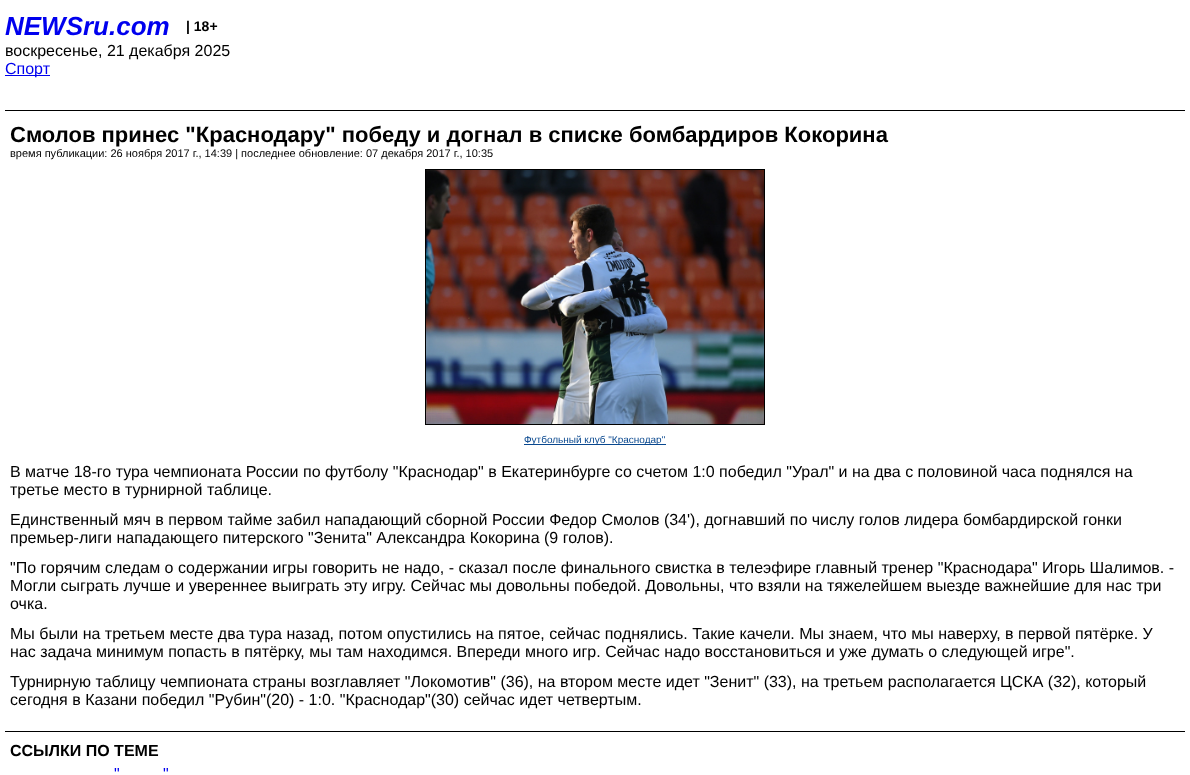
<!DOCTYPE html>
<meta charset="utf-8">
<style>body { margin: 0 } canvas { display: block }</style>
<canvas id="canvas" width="1190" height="775"></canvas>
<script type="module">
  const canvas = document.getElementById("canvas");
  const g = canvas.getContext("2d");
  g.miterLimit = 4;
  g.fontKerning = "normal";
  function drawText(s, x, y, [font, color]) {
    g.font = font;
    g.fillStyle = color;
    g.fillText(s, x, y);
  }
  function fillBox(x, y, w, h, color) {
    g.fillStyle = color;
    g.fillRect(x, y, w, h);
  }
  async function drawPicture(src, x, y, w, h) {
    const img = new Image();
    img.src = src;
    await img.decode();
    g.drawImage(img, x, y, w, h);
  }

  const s1 = ["italic bold 26px Liberation Sans", "#0000EE"];
  const s2 = ["bold 14px Liberation Sans", "#000000"];
  const s3 = ["16px Liberation Sans", "#000000"];
  const s4 = ["16px Liberation Sans", "#0000EE"];
  const s5 = ["bold 22px Liberation Sans", "#000000"];
  const s6 = ["11px Liberation Sans", "#000000"];
  const s7 = ["10px Liberation Sans", "#09488F"];
  const s8 = ["bold 16px Liberation Sans", "#000000"];

  fillBox(0, 0, 1190, 775, "#FFFFFF");
  fillBox(5, 110, 1180, 1, "#000000");
  drawText("NEWSru.com", 5, 35, s1);
  drawText("| 18+", 186, 31, s2);
  drawText("воскресенье, 21 декабря 2025", 5, 56, s3);
  fillBox(5, 75, 45, 1, "#0000EE");
  drawText("Спорт", 5, 74, s4);
  fillBox(5, 731, 1180, 1, "#000000");
  drawText("Смолов принес \"Краснодару\" победу и догнал в списке бомбардиров Кокорина", 10, 142, s5);
  drawText("время публикации: 26 ноября 2017 г., 14:39 | последнее обновление: 07 декабря 2017 г., 10:35", 10, 157, s6);
  g.strokeStyle = "#000000";
  g.strokeRect(425.5, 169.5, 339, 255);
  await drawPicture("pic1.png", 426, 170, 338, 254);
  fillBox(524, 444, 142, 1, "#09488F");
  drawText("Футбольный клуб \"Краснодар\"", 524, 443, s7);
  drawText("В матче 18-го тура чемпионата России по футболу \"Краснодар\" в Екатеринбурге со счетом 1:0 победил \"Урал\" и на два с половиной часа поднялся на", 10, 477, s3);
  drawText("третье место в турнирной таблице.", 10, 495, s3);
  drawText("Единственный мяч в первом тайме забил нападающий сборной России Федор Смолов (34'), догнавший по числу голов лидера бомбардирской гонки", 10, 525, s3);
  drawText("премьер-лиги нападающего питерского \"Зенита\" Александра Кокорина (9 голов).", 10, 543, s3);
  drawText("\"По горячим следам о содержании игры говорить не надо, - сказал после финального свистка в телеэфире главный тренер \"Краснодара\" Игорь Шалимов. -", 10, 573, s3);
  drawText("Могли сыграть лучше и увереннее выиграть эту игру. Сейчас мы довольны победой. Довольны, что взяли на тяжелейшем выезде важнейшие для нас три", 10, 591, s3);
  drawText("очка.", 10, 609, s3);
  drawText("Мы были на третьем месте два тура назад, потом опустились на пятое, сейчас поднялись. Такие качели. Мы знаем, что мы наверху, в первой пятёрке. У", 10, 639, s3);
  drawText("нас задача минимум попасть в пятёрку, мы там находимся. Впереди много игр. Сейчас надо восстановиться и уже думать о следующей игре\".", 10, 657, s3);
  drawText("Турнирную таблицу чемпионата страны возглавляет \"Локомотив\" (36), на втором месте идет \"Зенит\" (33), на третьем располагается ЦСКА (32), который", 10, 687, s3);
  drawText("сегодня в Казани победил \"Рубин\"(20) - 1:0. \"Краснодар\"(30) сейчас идет четвертым.", 10, 705, s3);
  drawText("ССЫЛКИ ПО ТЕМЕ", 10, 756, s8);
  drawText("\"", 114, 779, s4);
  drawText("\"", 163, 779, s4);
</script>
